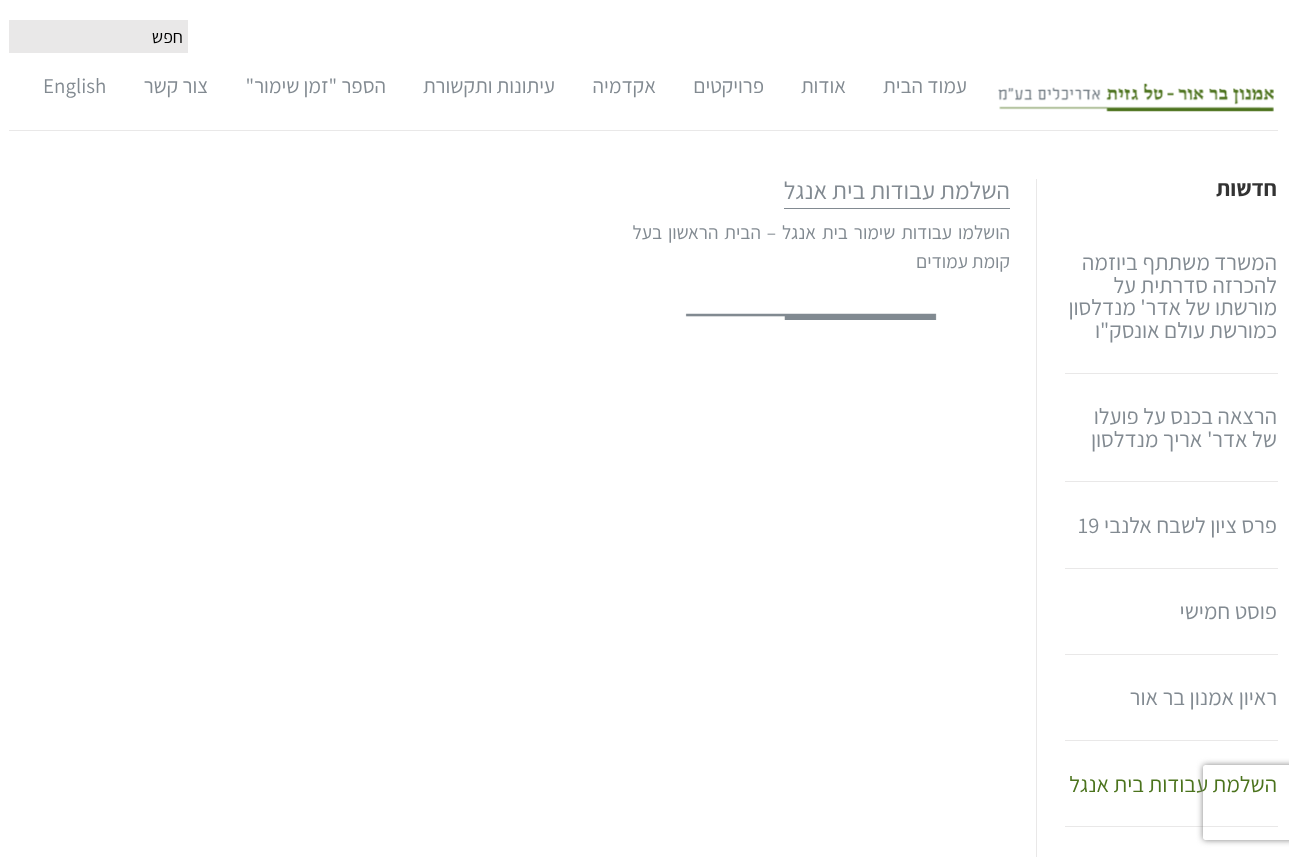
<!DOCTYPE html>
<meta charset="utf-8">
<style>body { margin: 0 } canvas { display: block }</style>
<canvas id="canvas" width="1289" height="857"></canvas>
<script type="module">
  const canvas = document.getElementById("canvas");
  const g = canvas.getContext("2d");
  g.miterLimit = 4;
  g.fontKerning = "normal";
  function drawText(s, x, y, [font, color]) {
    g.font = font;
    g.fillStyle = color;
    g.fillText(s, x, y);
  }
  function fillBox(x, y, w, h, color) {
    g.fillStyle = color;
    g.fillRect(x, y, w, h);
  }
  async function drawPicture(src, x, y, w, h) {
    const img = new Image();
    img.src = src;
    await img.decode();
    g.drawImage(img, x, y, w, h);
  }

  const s1 = ["18px Assistant", "#000000"];
  const s2 = ["21px Assistant", "#828A91"];
  const s3 = ["bold 22.5px Assistant", "#333333"];
  const s4 = ["22.5px Assistant", "#828A91"];
  const s5 = ["22.5px Assistant", "#4B731D"];
  const s6 = ["24.5px Assistant", "#828A91"];
  const s7 = ["19.25px Assistant", "#828A91"];

  fillBox(0, 0, 1289, 857, "#FFFFFF");
  fillBox(9, 130, 1269, 1, "#E9E8E8");
  fillBox(9, 20, 179, 33, "#E9E8E8");
  g.direction = "rtl";
  drawText("חפש", 183, 43, s1);
  await drawPicture("pic1.png", 998, 83, 276, 29);
  drawText("עמוד הבית", 967, 93, s2);
  drawText("אודות", 846, 93, s2);
  drawText("פרויקטים", 764, 93, s2);
  drawText("אקדמיה", 656, 93, s2);
  drawText("עיתונות ותקשורת", 555, 93, s2);
  drawText("הספר \"זמן שימור\"", 386, 93, s2);
  drawText("צור קשר", 208, 93, s2);
  g.direction = "ltr";
  drawText("English", 43, 93, s2);
  fillBox(1036, 176, 1, 681, "#E9E8E8");
  fillBox(1036, 176, 1, 3, "#FFFFFF");
  g.direction = "rtl";
  drawText("חדשות", 1277, 196, s3);
  fillBox(1065, 373, 213, 1, "#E9E8E8");
  drawText("המשרד משתתף ביוזמה", 1277, 270, s4);
  drawText("להכרזה סדרתית על", 1277, 293, s4);
  drawText("מורשתו של אדר' מנדלסון", 1277, 315, s4);
  drawText("כמורשת עולם אונסק\"ו", 1277, 338, s4);
  fillBox(1065, 481, 213, 1, "#E9E8E8");
  drawText("הרצאה בכנס על פועלו", 1277, 424, s4);
  drawText("של אדר' אריך מנדלסון", 1277, 447, s4);
  fillBox(1065, 568, 213, 1, "#E9E8E8");
  drawText("פרס ציון לשבח אלנבי", 1277, 533, s4);
  g.direction = "ltr";
  drawText("19", 1078, 533, s4);
  fillBox(1065, 654, 213, 1, "#E9E8E8");
  g.direction = "rtl";
  drawText("פוסט חמישי", 1277, 619, s4);
  fillBox(1065, 740, 213, 1, "#E9E8E8");
  drawText("ראיון אמנון בר אור", 1277, 705, s4);
  fillBox(1065, 826, 213, 1, "#E9E8E8");
  drawText("השלמת עבודות בית אנגל", 1277, 792, s5);
  fillBox(784, 208, 226, 1, "#828A91");
  drawText("השלמת עבודות בית אנגל", 1010, 199, s6);
  g.wordSpacing = "2px";
  drawText("הושלמו עבודות שימור", 1010, 239, s7);
  drawText("בית אנגל", 848, 239, s7);
  drawText("– הבית הראשון בעל", 776, 239, s7);
  g.wordSpacing = "0px";
  drawText("קומת עמודים", 1010, 268, s7);
  await drawPicture("pic2.png", 685, 313, 252, 7);
  g.save();
  g.beginPath();
  g.moveTo(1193, 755);
  g.lineTo(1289, 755);
  g.lineTo(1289, 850);
  g.lineTo(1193, 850);
  g.closePath();
  g.moveTo(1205.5, 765);
  g.lineTo(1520.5, 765);
  g.bezierCurveTo(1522, 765, 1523, 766, 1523, 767.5);
  g.lineTo(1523, 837.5);
  g.bezierCurveTo(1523, 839, 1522, 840, 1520.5, 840);
  g.lineTo(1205.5, 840);
  g.bezierCurveTo(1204, 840, 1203, 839, 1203, 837.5);
  g.lineTo(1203, 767.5);
  g.bezierCurveTo(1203, 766, 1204, 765, 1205.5, 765);
  g.closePath();
  g.clip("evenodd");
  g.fillStyle = "#808080";
  g.filter = "blur(3px)";
  g.beginPath();
  g.roundRect(1203, 765, 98, 75, 2.5);
  g.fill();
  g.filter = "none";
  g.restore();
</script>
